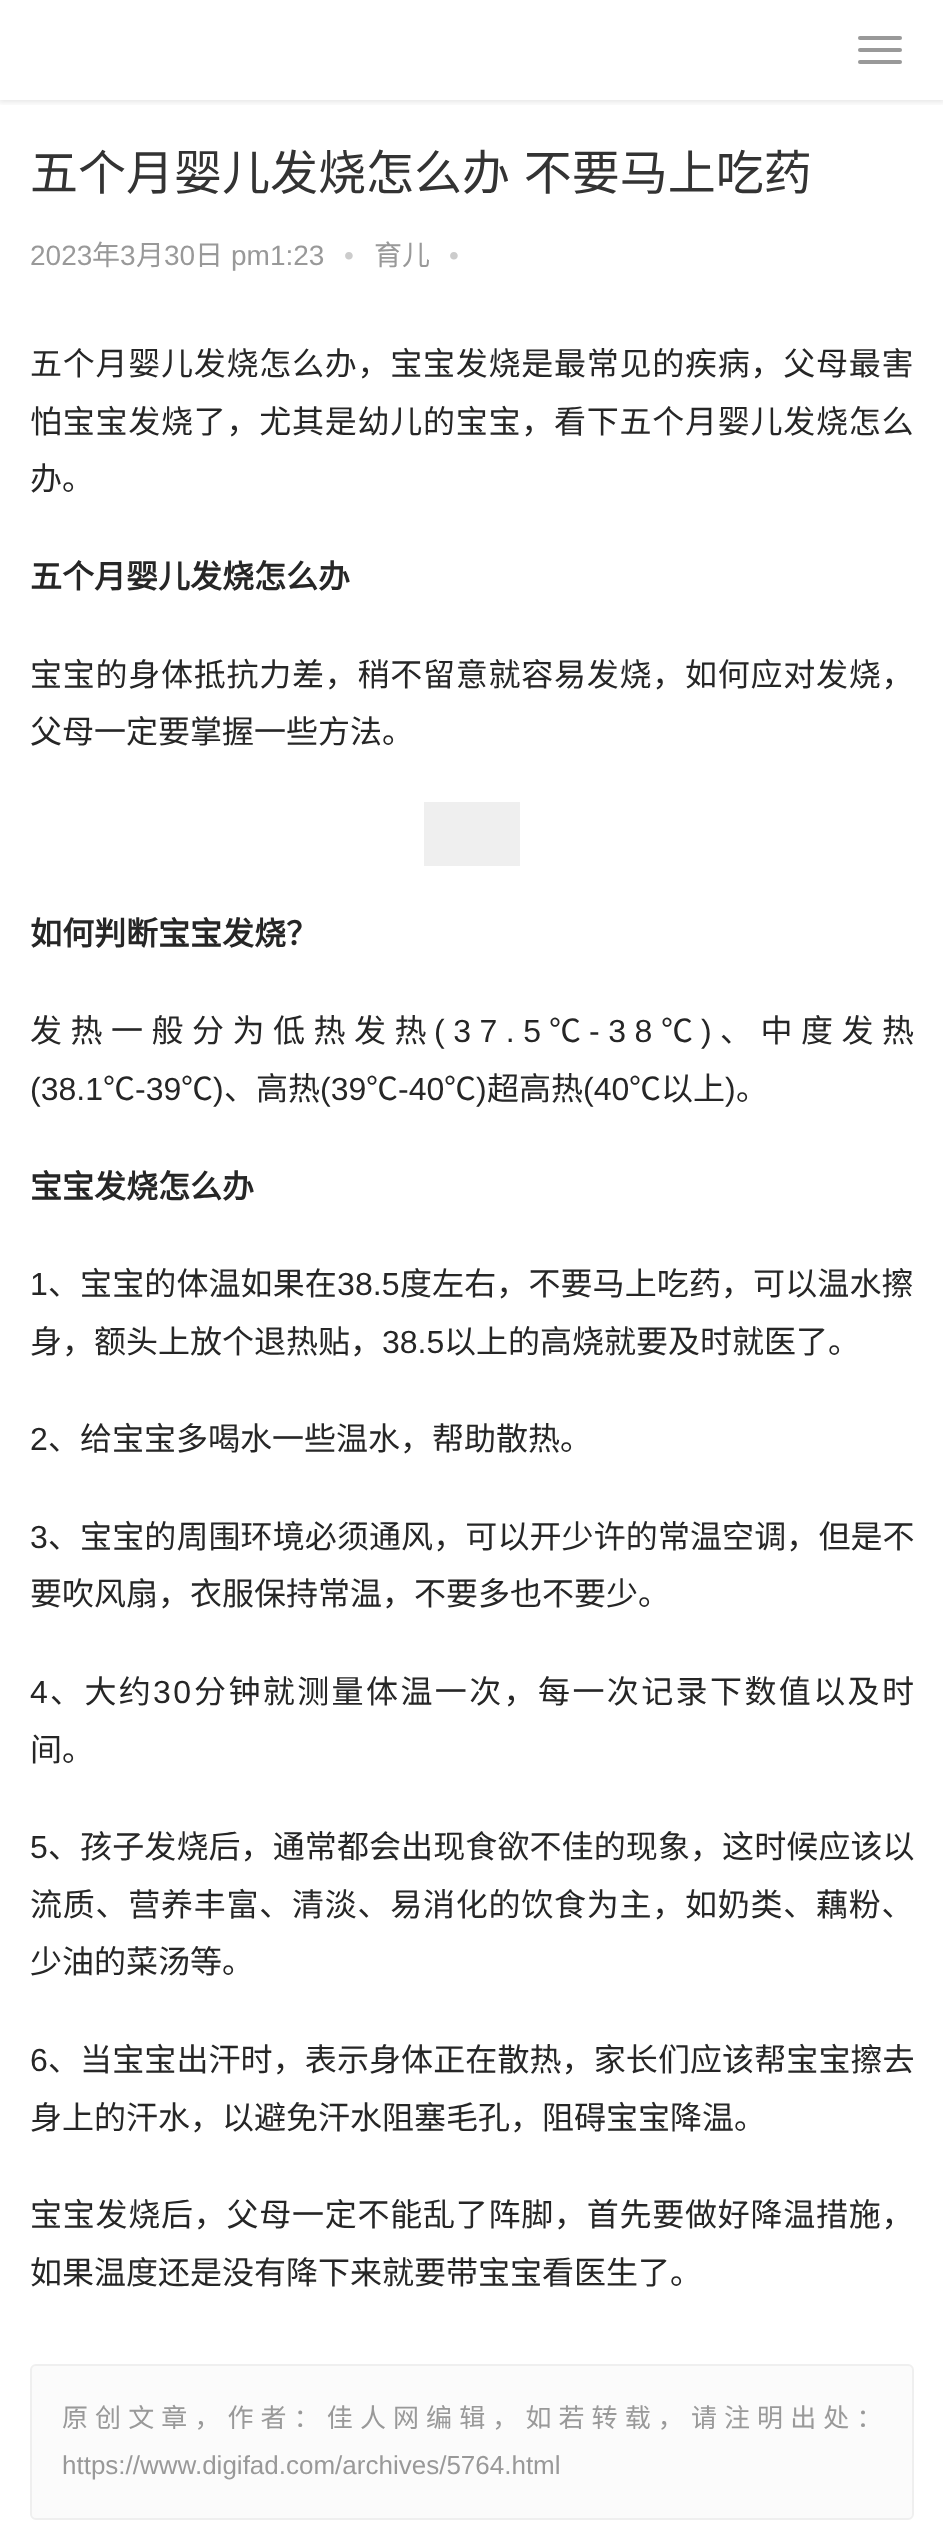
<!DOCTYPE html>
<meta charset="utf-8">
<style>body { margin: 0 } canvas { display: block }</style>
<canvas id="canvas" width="943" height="2523"></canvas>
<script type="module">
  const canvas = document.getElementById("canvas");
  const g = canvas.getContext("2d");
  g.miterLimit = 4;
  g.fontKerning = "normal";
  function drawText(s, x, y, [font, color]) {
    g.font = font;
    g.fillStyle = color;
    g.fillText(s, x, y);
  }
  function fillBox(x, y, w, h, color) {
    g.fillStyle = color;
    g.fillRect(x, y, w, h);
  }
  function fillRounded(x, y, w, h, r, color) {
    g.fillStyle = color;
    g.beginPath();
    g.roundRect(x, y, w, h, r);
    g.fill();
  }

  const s1 = ["48px Noto Sans CJK SC", "#333333"];
  const s2 = ["28px Liberation Sans", "#999999"];
  const s3 = ["28px Noto Sans CJK SC", "#999999"];
  const s4 = ["28px Liberation Sans", "#CCCCCC"];
  const s5 = ["32px Noto Sans CJK SC", "#262626"];
  const s6 = ["bold 32px Noto Sans CJK SC", "#262626"];
  const s7 = ["32px Liberation Sans", "#262626"];
  const s8 = ["26px Noto Sans CJK SC", "#999999"];
  const s9 = ["26px Liberation Sans", "#999999"];

  fillBox(0, 0, 943, 2523, "#FFFFFF");
  g.save();
  g.beginPath();
  g.rect(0, 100, 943, 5);
  g.clip();
  g.fillStyle = "rgba(0, 0, 0, 0.1)";
  g.filter = "blur(3px)";
  g.beginPath();
  g.rect(-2, -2, 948, 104);
  g.fill();
  g.filter = "none";
  g.restore();
  fillRounded(858, 36, 44, 4, 2, "#999999");
  fillRounded(858, 48, 44, 4, 2, "#999999");
  fillRounded(858, 60, 44, 4, 2, "#999999");
  g.wordSpacing = "3px";
  drawText("五个月婴儿发烧怎么办 不要马上吃药", 30, 190, s1);
  g.wordSpacing = "0px";
  drawText("2023", 30, 265, s2);
  drawText("年", 92, 265, s3);
  drawText("3", 120, 265, s2);
  drawText("月", 136, 265, s3);
  drawText("30", 164, 265, s2);
  drawText("日", 195, 265, s3);
  drawText("pm1:23", 231, 265, s2);
  drawText("•", 344, 265, s4);
  drawText("育儿", 374, 265, s3);
  drawText("•", 449, 265, s4);
  g.letterSpacing = "0.75px";
  drawText("五个月婴儿发烧怎么办，宝宝发烧是最常见的疾病，父母最害", 30, 375, s5);
  drawText("怕宝宝发烧了，尤其是幼儿的宝宝，看下五个月婴儿发烧怎么", 30, 433, s5);
  g.letterSpacing = "0px";
  drawText("办。", 30, 490, s5);
  drawText("五个月婴儿发烧怎么办", 30, 588, s6);
  g.letterSpacing = "0.75px";
  drawText("宝宝的身体抵抗力差，稍不留意就容易发烧，如何应对发烧，", 30, 686, s5);
  g.letterSpacing = "0px";
  drawText("父母一定要掌握一些方法。", 30, 743, s5);
  fillBox(424, 802, 96, 64, "#EFEFEF");
  drawText("如何判断宝宝发烧？", 30, 945, s6);
  g.letterSpacing = "8.5px";
  drawText("发热一般分为低热发热", 30, 1042, s5);
  drawText("(37.5", 434, 1042, s7);
  drawText("℃", 549, 1042, s5);
  drawText("-38", 589, 1042, s7);
  drawText("℃", 661, 1042, s5);
  drawText(")", 701, 1042, s7);
  drawText("、中度发热", 720, 1042, s5);
  g.letterSpacing = "0px";
  drawText("(38.1", 30, 1100, s7);
  drawText("℃", 103, 1100, s5);
  drawText("-39", 135, 1100, s7);
  drawText("℃", 181, 1100, s5);
  drawText(")", 213, 1100, s7);
  drawText("、高热", 224, 1100, s5);
  drawText("(39", 320, 1100, s7);
  drawText("℃", 366, 1100, s5);
  drawText("-40", 398, 1100, s7);
  drawText("℃", 444, 1100, s5);
  drawText(")", 476, 1100, s7);
  drawText("超高热", 487, 1100, s5);
  drawText("(40", 583, 1100, s7);
  drawText("℃以上", 629, 1100, s5);
  drawText(")", 725, 1100, s7);
  drawText("。", 736, 1100, s5);
  drawText("宝宝发烧怎么办", 30, 1198, s6);
  g.letterSpacing = "0.1px";
  drawText("1", 30, 1295, s7);
  drawText("、宝宝的体温如果在", 48, 1295, s5);
  drawText("38.5", 337, 1295, s7);
  drawText("度左右，不要马上吃药，可以温水擦", 400, 1295, s5);
  g.letterSpacing = "0px";
  drawText("身，额头上放个退热贴，", 30, 1353, s5);
  drawText("38.5", 382, 1353, s7);
  drawText("以上的高烧就要及时就医了。", 444, 1353, s5);
  drawText("2", 30, 1450, s7);
  drawText("、给宝宝多喝水一些温水，帮助散热。", 48, 1450, s5);
  g.letterSpacing = "0.1px";
  drawText("3", 30, 1548, s7);
  drawText("、宝宝的周围环境必须通风，可以开少许的常温空调，但是不", 48, 1548, s5);
  g.letterSpacing = "0px";
  drawText("要吹风扇，衣服保持常温，不要多也不要少。", 30, 1605, s5);
  g.letterSpacing = "2.4px";
  drawText("4", 30, 1703, s7);
  drawText("、大约", 50, 1703, s5);
  drawText("30", 153, 1703, s7);
  drawText("分钟就测量体温一次，每一次记录下数值以及时", 194, 1703, s5);
  g.letterSpacing = "0px";
  drawText("间。", 30, 1761, s5);
  g.letterSpacing = "0.1px";
  drawText("5", 30, 1858, s7);
  drawText("、孩子发烧后，通常都会出现食欲不佳的现象，这时候应该以", 48, 1858, s5);
  g.letterSpacing = "0.75px";
  drawText("流质、营养丰富、清淡、易消化的饮食为主，如奶类、藕粉、", 30, 1916, s5);
  g.letterSpacing = "0px";
  drawText("少油的菜汤等。", 30, 1973, s5);
  g.letterSpacing = "0.1px";
  drawText("6", 30, 2071, s7);
  drawText("、当宝宝出汗时，表示身体正在散热，家长们应该帮宝宝擦去", 48, 2071, s5);
  g.letterSpacing = "0px";
  drawText("身上的汗水，以避免汗水阻塞毛孔，阻碍宝宝降温。", 30, 2129, s5);
  g.letterSpacing = "0.75px";
  drawText("宝宝发烧后，父母一定不能乱了阵脚，首先要做好降温措施，", 30, 2226, s5);
  g.letterSpacing = "0px";
  drawText("如果温度还是没有降下来就要带宝宝看医生了。", 30, 2284, s5);
  g.fillStyle = "#FBFBFB";
  g.beginPath();
  g.roundRect(31, 2365, 882, 154, 5);
  g.fill();
  g.strokeStyle = "#EFEFEF";
  g.lineWidth = 2;
  g.stroke();
  g.letterSpacing = "7.1px";
  drawText("原创文章，作者：佳人网编辑，如若转载，请注明出处：", 62, 2427, s8);
  g.letterSpacing = "0px";
  drawText("https://www.digifad.com/archives/5764.html", 62, 2474, s9);
</script>
